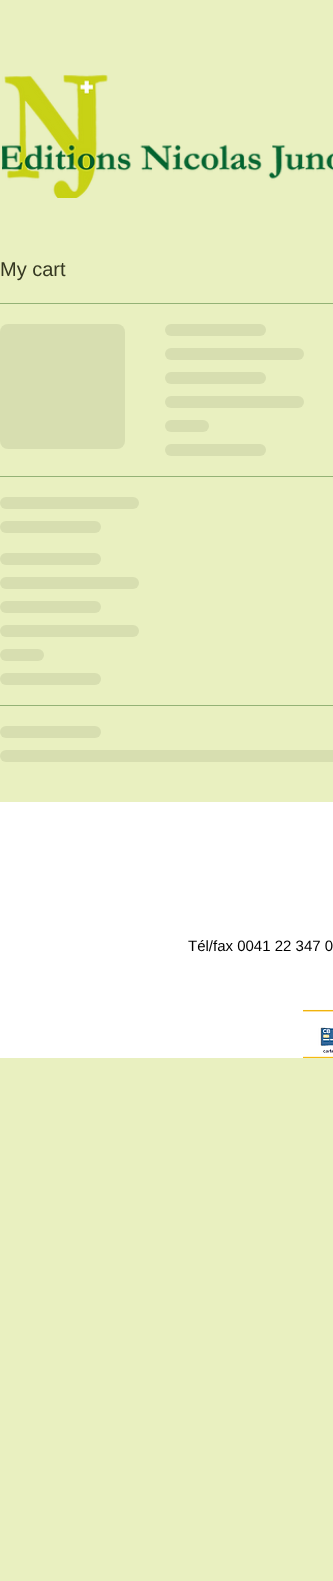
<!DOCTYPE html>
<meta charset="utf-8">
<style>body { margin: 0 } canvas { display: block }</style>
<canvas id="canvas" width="333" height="1581"></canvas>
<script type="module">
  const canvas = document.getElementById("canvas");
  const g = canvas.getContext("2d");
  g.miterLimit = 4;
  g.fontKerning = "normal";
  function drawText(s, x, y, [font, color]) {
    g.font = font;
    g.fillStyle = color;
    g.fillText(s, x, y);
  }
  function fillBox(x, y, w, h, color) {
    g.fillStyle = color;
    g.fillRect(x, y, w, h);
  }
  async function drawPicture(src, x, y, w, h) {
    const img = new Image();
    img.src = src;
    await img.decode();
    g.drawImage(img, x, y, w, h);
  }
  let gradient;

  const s1 = ["20px Liberation Sans", "#353822"];
  const s2 = ["15px Liberation Sans", "#000000"];

  fillBox(0, 0, 333, 1581, "#E9F0C0");
  await drawPicture("pic1.png", 2, 74, 331, 124);
  fillBox(0, 303, 333, 1, "#94B276");
  drawText("My cart", 0, 276, s1);
  gradient = g.createLinearGradient(0, 387, 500, 387);
  gradient.addColorStop(0.25, "#D7DEB0");
  gradient.addColorStop(0.37, "#C5CBA0");
  gradient.addColorStop(0.63, "#D7DEB0");
  g.fillStyle = gradient;
  g.beginPath();
  g.roundRect(0, 324, 125, 125, 8);
  g.fill();
  gradient = g.createLinearGradient(165, 330, 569, 330);
  gradient.addColorStop(0.25, "#D7DEB0");
  gradient.addColorStop(0.37, "#C5CBA0");
  gradient.addColorStop(0.63, "#D7DEB0");
  g.fillStyle = gradient;
  g.beginPath();
  g.roundRect(165, 324, 101, 12, 6);
  g.fill();
  gradient = g.createLinearGradient(165, 354, 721, 354);
  gradient.addColorStop(0.25, "#D7DEB0");
  gradient.addColorStop(0.37, "#C5CBA0");
  gradient.addColorStop(0.63, "#D7DEB0");
  g.fillStyle = gradient;
  g.beginPath();
  g.roundRect(165, 348, 139, 12, 6);
  g.fill();
  gradient = g.createLinearGradient(165, 378, 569, 378);
  gradient.addColorStop(0.25, "#D7DEB0");
  gradient.addColorStop(0.37, "#C5CBA0");
  gradient.addColorStop(0.63, "#D7DEB0");
  g.fillStyle = gradient;
  g.beginPath();
  g.roundRect(165, 372, 101, 12, 6);
  g.fill();
  gradient = g.createLinearGradient(165, 402, 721, 402);
  gradient.addColorStop(0.25, "#D7DEB0");
  gradient.addColorStop(0.37, "#C5CBA0");
  gradient.addColorStop(0.63, "#D7DEB0");
  g.fillStyle = gradient;
  g.beginPath();
  g.roundRect(165, 396, 139, 12, 6);
  g.fill();
  gradient = g.createLinearGradient(165, 426, 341, 426);
  gradient.addColorStop(0.25, "#D7DEB0");
  gradient.addColorStop(0.37, "#C5CBA0");
  gradient.addColorStop(0.63, "#D7DEB0");
  g.fillStyle = gradient;
  g.beginPath();
  g.roundRect(165, 420, 44, 12, 6);
  g.fill();
  gradient = g.createLinearGradient(165, 450, 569, 450);
  gradient.addColorStop(0.25, "#D7DEB0");
  gradient.addColorStop(0.37, "#C5CBA0");
  gradient.addColorStop(0.63, "#D7DEB0");
  g.fillStyle = gradient;
  g.beginPath();
  g.roundRect(165, 444, 101, 12, 6);
  g.fill();
  fillBox(0, 476, 333, 1, "#94B276");
  gradient = g.createLinearGradient(0, 503, 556, 503);
  gradient.addColorStop(0.25, "#D7DEB0");
  gradient.addColorStop(0.37, "#C5CBA0");
  gradient.addColorStop(0.63, "#D7DEB0");
  g.fillStyle = gradient;
  g.beginPath();
  g.roundRect(0, 497, 139, 12, 6);
  g.fill();
  gradient = g.createLinearGradient(0, 527, 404, 527);
  gradient.addColorStop(0.25, "#D7DEB0");
  gradient.addColorStop(0.37, "#C5CBA0");
  gradient.addColorStop(0.63, "#D7DEB0");
  g.fillStyle = gradient;
  g.beginPath();
  g.roundRect(0, 521, 101, 12, 6);
  g.fill();
  gradient = g.createLinearGradient(0, 559, 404, 559);
  gradient.addColorStop(0.25, "#D7DEB0");
  gradient.addColorStop(0.37, "#C5CBA0");
  gradient.addColorStop(0.63, "#D7DEB0");
  g.fillStyle = gradient;
  g.beginPath();
  g.roundRect(0, 553, 101, 12, 6);
  g.fill();
  gradient = g.createLinearGradient(0, 583, 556, 583);
  gradient.addColorStop(0.25, "#D7DEB0");
  gradient.addColorStop(0.37, "#C5CBA0");
  gradient.addColorStop(0.63, "#D7DEB0");
  g.fillStyle = gradient;
  g.beginPath();
  g.roundRect(0, 577, 139, 12, 6);
  g.fill();
  gradient = g.createLinearGradient(0, 607, 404, 607);
  gradient.addColorStop(0.25, "#D7DEB0");
  gradient.addColorStop(0.37, "#C5CBA0");
  gradient.addColorStop(0.63, "#D7DEB0");
  g.fillStyle = gradient;
  g.beginPath();
  g.roundRect(0, 601, 101, 12, 6);
  g.fill();
  gradient = g.createLinearGradient(0, 631, 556, 631);
  gradient.addColorStop(0.25, "#D7DEB0");
  gradient.addColorStop(0.37, "#C5CBA0");
  gradient.addColorStop(0.63, "#D7DEB0");
  g.fillStyle = gradient;
  g.beginPath();
  g.roundRect(0, 625, 139, 12, 6);
  g.fill();
  gradient = g.createLinearGradient(0, 655, 176, 655);
  gradient.addColorStop(0.25, "#D7DEB0");
  gradient.addColorStop(0.37, "#C5CBA0");
  gradient.addColorStop(0.63, "#D7DEB0");
  g.fillStyle = gradient;
  g.beginPath();
  g.roundRect(0, 649, 44, 12, 6);
  g.fill();
  gradient = g.createLinearGradient(0, 679, 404, 679);
  gradient.addColorStop(0.25, "#D7DEB0");
  gradient.addColorStop(0.37, "#C5CBA0");
  gradient.addColorStop(0.63, "#D7DEB0");
  g.fillStyle = gradient;
  g.beginPath();
  g.roundRect(0, 673, 101, 12, 6);
  g.fill();
  fillBox(0, 705, 333, 1, "#94B276");
  gradient = g.createLinearGradient(0, 732, 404, 732);
  gradient.addColorStop(0.25, "#D7DEB0");
  gradient.addColorStop(0.37, "#C5CBA0");
  gradient.addColorStop(0.63, "#D7DEB0");
  g.fillStyle = gradient;
  g.beginPath();
  g.roundRect(0, 726, 101, 12, 6);
  g.fill();
  gradient = g.createLinearGradient(0, 756, 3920, 756);
  gradient.addColorStop(0.25, "#D7DEB0");
  gradient.addColorStop(0.37, "#C5CBA0");
  gradient.addColorStop(0.63, "#D7DEB0");
  g.fillStyle = gradient;
  g.beginPath();
  g.roundRect(0, 750, 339, 12, 6);
  g.fill();
  fillBox(0, 802, 333, 256, "#FFFFFF");
  drawText("Tél/fax 0041 22 347 0", 188, 951, s2);
  await drawPicture("pic2.png", 303, 1009, 30, 49);
</script>
